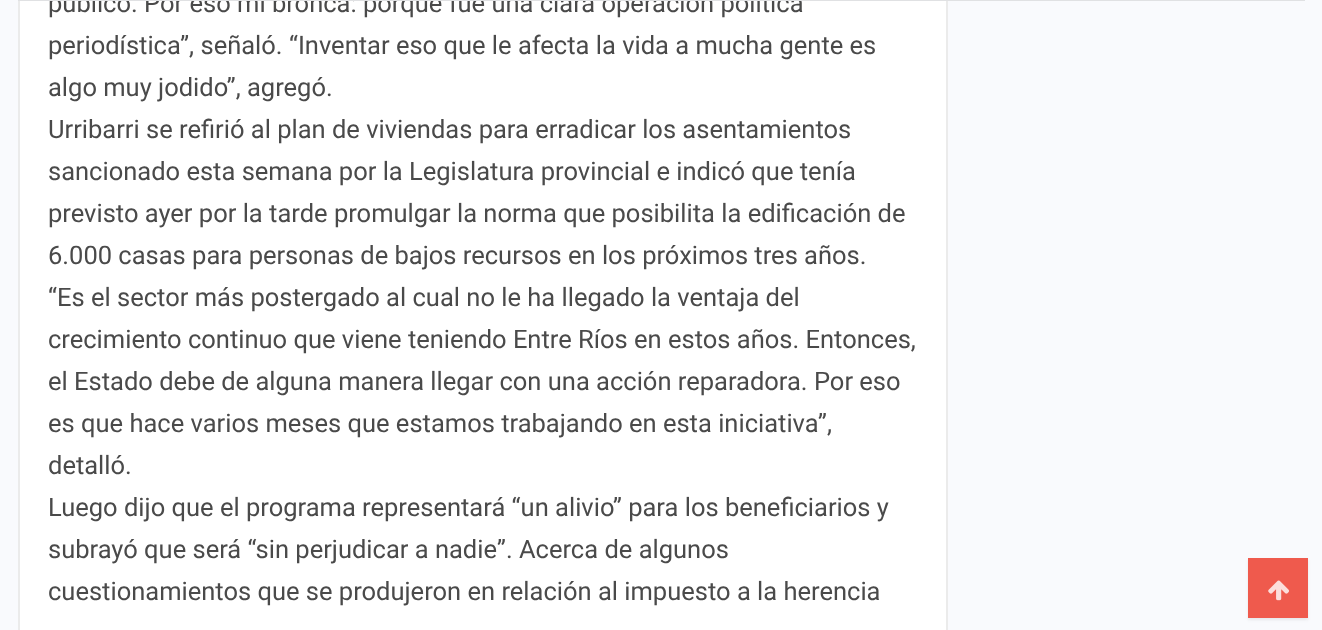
<!DOCTYPE html>
<meta charset="utf-8">
<style>body { margin: 0 } canvas { display: block }</style>
<canvas id="canvas" width="1322" height="630"></canvas>
<script type="module">
  const canvas = document.getElementById("canvas");
  const g = canvas.getContext("2d");
  g.miterLimit = 4;
  g.fontKerning = "normal";
  function drawText(s, x, y, [font, color]) {
    g.font = font;
    g.fillStyle = color;
    g.fillText(s, x, y);
  }
  function fillBox(x, y, w, h, color) {
    g.fillStyle = color;
    g.fillRect(x, y, w, h);
  }
  async function drawPicture(src, x, y, w, h) {
    const img = new Image();
    img.src = src;
    await img.decode();
    g.drawImage(img, x, y, w, h);
  }

  const s1 = ["25.5px Roboto", "#4A4A4A"];

  fillBox(0, 0, 1322, 630, "#F9FAFD");
  fillBox(20, 1, 926, 629, "#FFFFFF");
  g.strokeStyle = "#EBEBEB";
  g.lineWidth = 2;
  g.strokeRect(19, -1, 928, 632);
  drawText("publicó. Por eso mi bronca: porque fue una clara operación política", 48, 12, s1);
  fillBox(18, 0, 1287, 1, "#E0E1E3");
  drawText("periodística”, señaló. “Inventar eso que le afecta la vida a mucha gente es", 48, 54, s1);
  drawText("algo muy jodido”, agregó.", 48, 96, s1);
  drawText("Urribarri se refirió al plan de viviendas para erradicar los asentamientos", 48, 138, s1);
  drawText("sancionado esta semana por la Legislatura provincial e indicó que tenía", 48, 180, s1);
  drawText("previsto ayer por la tarde promulgar la norma que posibilita la edificación de", 48, 222, s1);
  drawText("6.000 casas para personas de bajos recursos en los próximos tres años.", 48, 264, s1);
  drawText("“Es el sector más postergado al cual no le ha llegado la ventaja del", 48, 306, s1);
  drawText("crecimiento continuo que viene teniendo Entre Ríos en estos años. Entonces,", 48, 348, s1);
  drawText("el Estado debe de alguna manera llegar con una acción reparadora. Por eso", 48, 390, s1);
  drawText("es que hace varios meses que estamos trabajando en esta iniciativa”,", 48, 432, s1);
  drawText("detalló.", 48, 474, s1);
  drawText("Luego dijo que el programa representará “un alivio” para los beneficiarios y", 48, 516, s1);
  drawText("subrayó que será “sin perjudicar a nadie”. Acerca de algunos", 48, 558, s1);
  drawText("cuestionamientos que se produjeron en relación al impuesto a la herencia", 48, 600, s1);
  g.fillStyle = "rgba(50, 50, 51, 0.09)";
  g.filter = "blur(1.5px)";
  g.beginPath();
  g.rect(1248, 560, 60, 60);
  g.fill();
  g.filter = "none";
  fillBox(1248, 558, 60, 60, "#EF5A4D");
  await drawPicture("pic1.png", 1268, 580, 21, 21);
</script>
